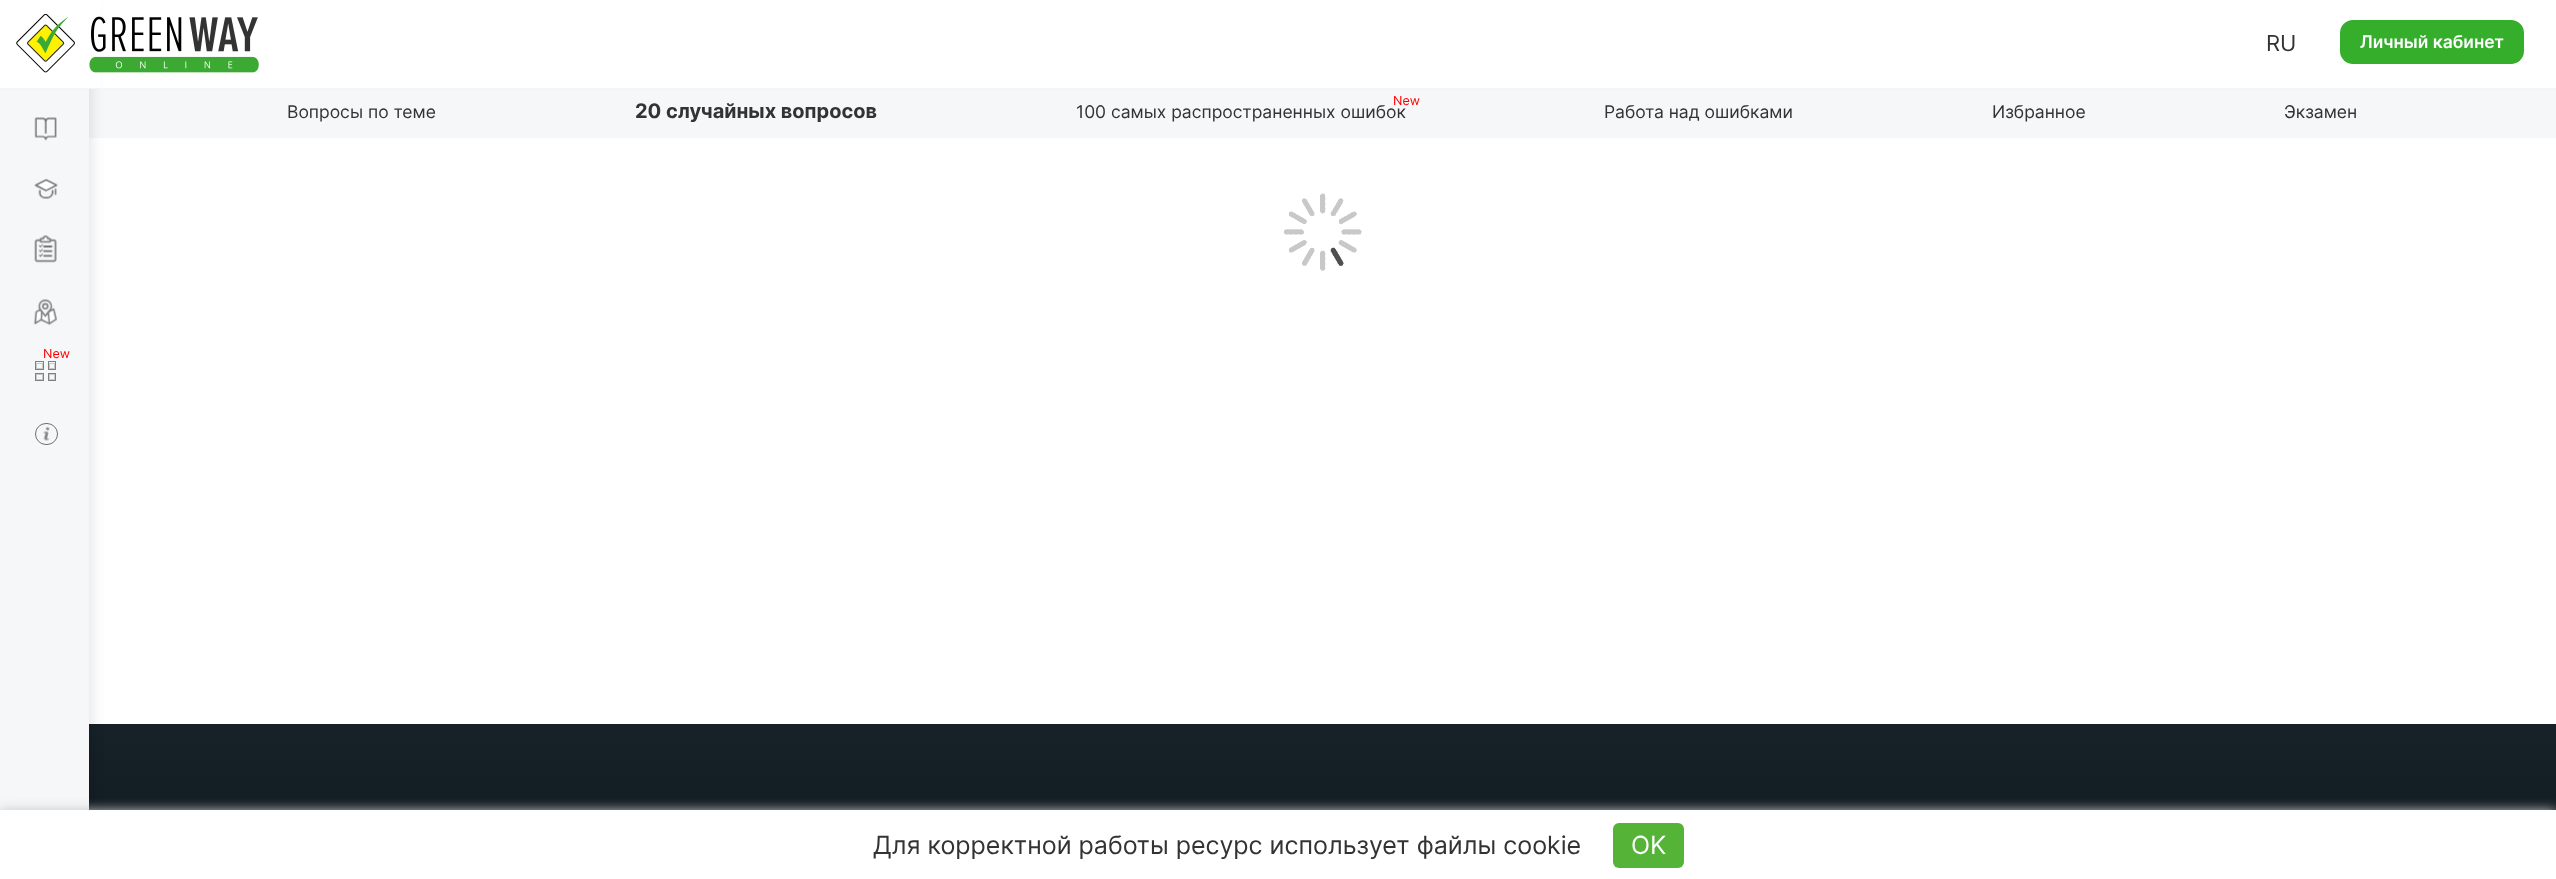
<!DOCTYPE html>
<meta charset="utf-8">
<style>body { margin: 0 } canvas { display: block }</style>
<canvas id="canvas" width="2556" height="879"></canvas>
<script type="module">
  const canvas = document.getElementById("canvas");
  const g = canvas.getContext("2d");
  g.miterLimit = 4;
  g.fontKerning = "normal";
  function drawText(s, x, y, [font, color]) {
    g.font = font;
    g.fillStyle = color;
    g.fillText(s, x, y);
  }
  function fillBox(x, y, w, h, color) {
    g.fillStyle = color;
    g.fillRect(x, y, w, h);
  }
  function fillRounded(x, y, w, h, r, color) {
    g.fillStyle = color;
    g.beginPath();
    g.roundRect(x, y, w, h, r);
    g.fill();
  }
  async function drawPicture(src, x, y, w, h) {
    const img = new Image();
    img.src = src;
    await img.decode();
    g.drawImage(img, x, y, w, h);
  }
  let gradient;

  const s1 = ["22px Inter", "#333333"];
  const s2 = ["600 17.5px Inter", "#FFFFFF"];
  const s3 = ["17.5px Inter", "#333333"];
  const s4 = ["bold 20px Inter", "#333333"];
  const s5 = ["12.5px Inter", "#FF0000"];
  const s6 = ["25px Inter", "#333333"];
  const s7 = ["25px Inter", "#FFFFFF"];

  fillBox(0, 0, 2556, 879, "#FFFFFF");
  fillBox(89, 89, 2467, 49, "#F6F7F9");
  gradient = g.createLinearGradient(1278, 724, 1278, 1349);
  gradient.addColorStop(0, "#162128");
  gradient.addColorStop(1, "#04040C");
  g.fillStyle = gradient;
  g.fillRect(89, 724, 2467, 86);
  g.fillStyle = "rgba(2, 2, 2, 0.11)";
  g.filter = "blur(7px)";
  g.beginPath();
  g.rect(3, 0, 88, 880);
  g.fill();
  g.filter = "none";
  fillBox(0, 0, 100, 88, "#FFFFFF");
  fillBox(0, 88, 2556, 1, "#F5F5F5");
  await drawPicture("pic1.png", 16, 14, 243, 59);
  drawText("RU", 2266, 51, s1);
  fillRounded(2340, 20, 184, 44, 13, "#35AE2C");
  drawText("Личный кабинет", 2360, 48, s2);
  drawText("Вопросы по теме", 287, 118, s3);
  drawText("20 случайных вопросов", 635, 118, s4);
  drawText("New", 1393, 105, s5);
  drawText("100 самых распространенных ошибок", 1076, 118, s3);
  drawText("Работа над ошибками", 1604, 118, s3);
  drawText("Избранное", 1992, 118, s3);
  drawText("Экзамен", 2284, 118, s3);
  await drawPicture("pic2.png", 1284, 193, 78, 78);
  fillBox(0, 89, 89, 721, "#F6F7F9");
  await drawPicture("pic3.png", 34, 117, 23, 24);
  await drawPicture("pic4.png", 34, 178, 24, 21);
  await drawPicture("pic5.png", 34, 235, 23, 28);
  await drawPicture("pic6.png", 33, 299, 24, 26);
  drawText("New", 43, 358, s5);
  g.strokeStyle = "#808080";
  g.strokeRect(35.5, 361.5, 8, 8);
  g.strokeStyle = "#C9C9C9";
  g.strokeRect(36.5, 363.5, 6, 5);
  g.strokeStyle = "#808080";
  g.strokeRect(48.5, 361.5, 7, 8);
  g.strokeStyle = "#C9C9C9";
  g.strokeRect(49.5, 363.5, 5, 5);
  g.strokeStyle = "#808080";
  g.strokeRect(35.5, 373.5, 8, 7);
  g.strokeStyle = "#C9C9C9";
  g.strokeRect(36.5, 374.5, 6, 5);
  g.strokeStyle = "#808080";
  g.strokeRect(48.5, 373.5, 7, 7);
  g.strokeStyle = "#C9C9C9";
  g.strokeRect(49.5, 374.5, 5, 5);
  await drawPicture("pic7.png", 43, 426, 7, 15);
  g.beginPath();
  g.roundRect(35.5, 423.5, 22, 21, 10.5);
  g.strokeStyle = "#707070";
  g.stroke();
  g.fillStyle = "#C6C6C6";
  g.filter = "blur(6px)";
  g.beginPath();
  g.rect(0, 810, 2556, 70);
  g.fill();
  g.filter = "none";
  fillBox(0, 810, 2556, 69, "#FFFFFF");
  drawText("Для корректной работы ресурс использует файлы cookie", 873, 854, s6);
  fillRounded(1613, 823, 71, 45, 6, "#55B338");
  drawText("OK", 1631, 854, s7);
</script>
